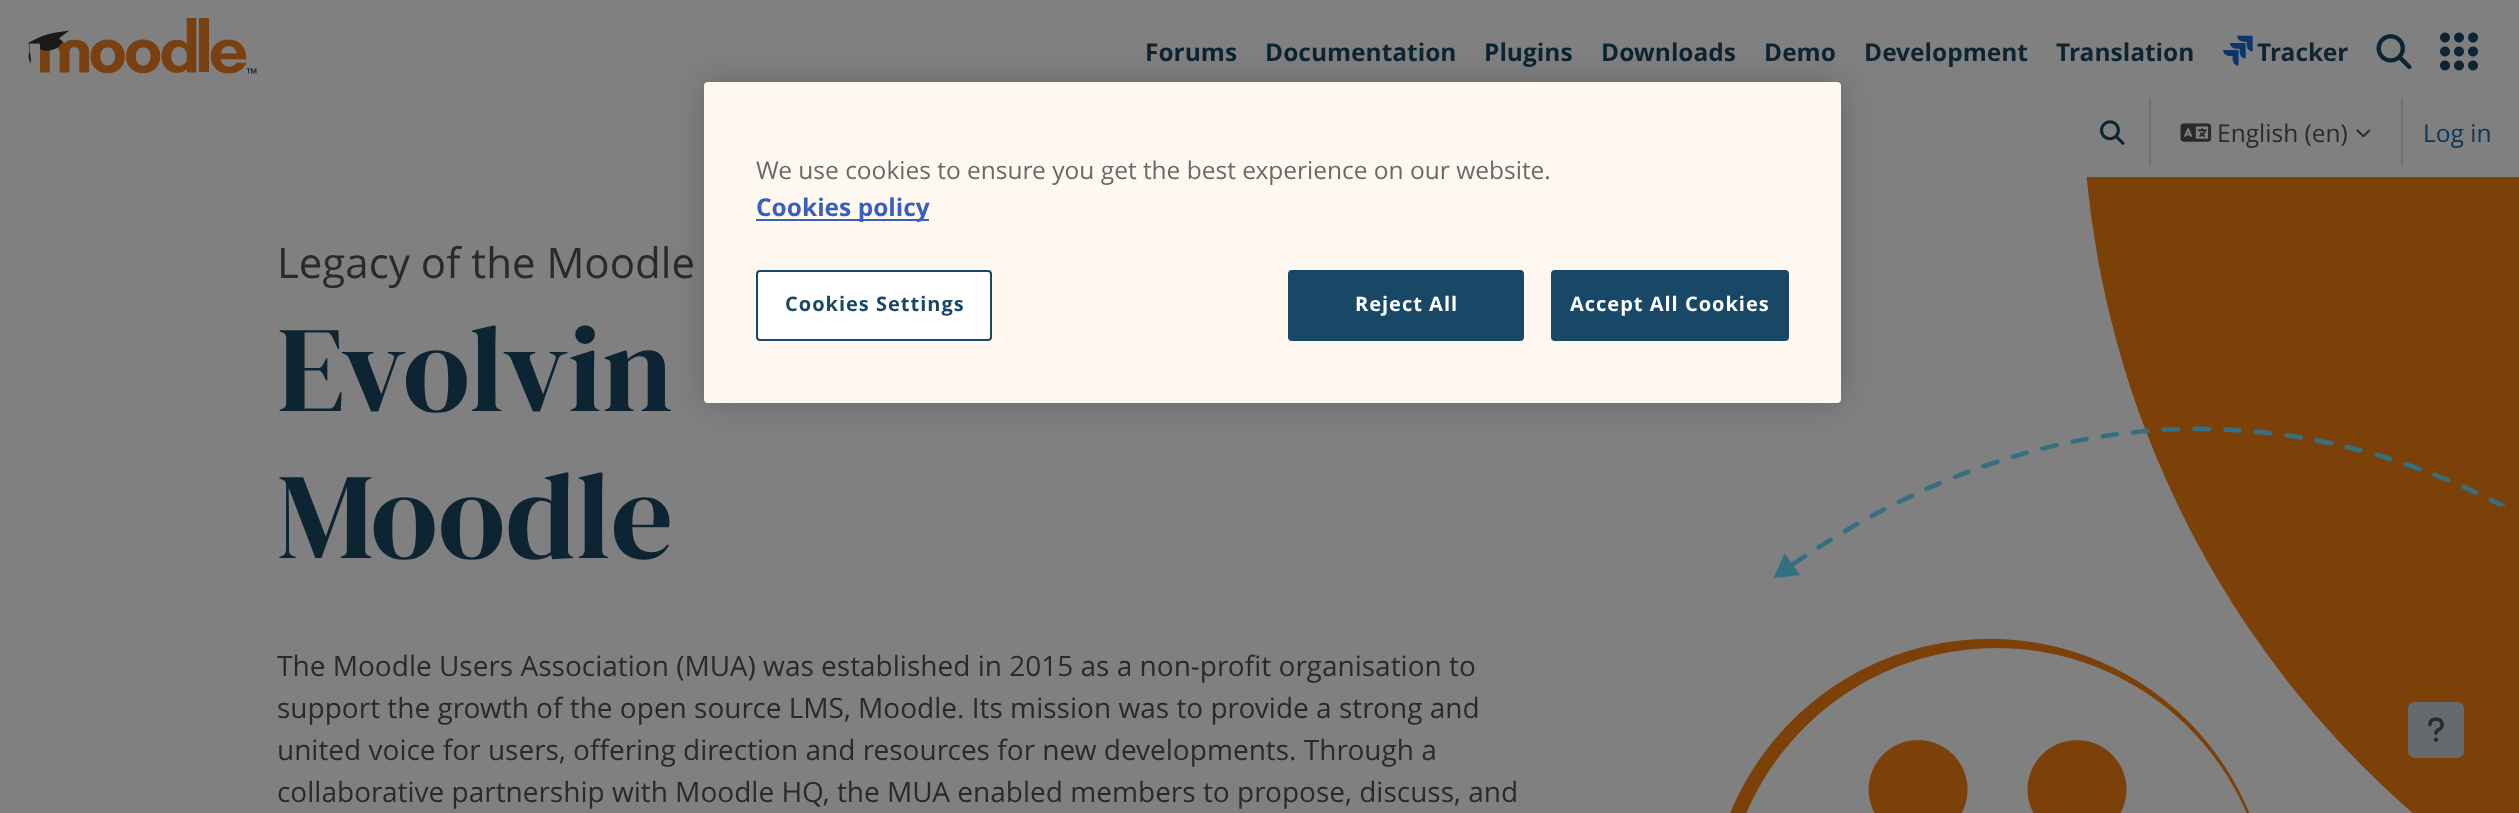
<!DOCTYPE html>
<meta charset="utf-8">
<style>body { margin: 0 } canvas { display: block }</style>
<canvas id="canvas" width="2519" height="813"></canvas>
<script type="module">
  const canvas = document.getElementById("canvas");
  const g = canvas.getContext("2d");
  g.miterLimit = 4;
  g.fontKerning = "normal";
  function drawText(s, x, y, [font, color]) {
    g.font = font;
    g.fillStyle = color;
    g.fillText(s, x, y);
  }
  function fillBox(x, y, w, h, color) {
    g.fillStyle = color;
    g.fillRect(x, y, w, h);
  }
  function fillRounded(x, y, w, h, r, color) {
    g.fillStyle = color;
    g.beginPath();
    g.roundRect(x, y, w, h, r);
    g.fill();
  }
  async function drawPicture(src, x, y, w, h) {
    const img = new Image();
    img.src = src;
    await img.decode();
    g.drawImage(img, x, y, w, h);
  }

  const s1 = ["bold 24.5px Open Sans", "#0D2433"];
  const s2 = ["24.5px Open Sans", "#2A2A2A"];
  const s3 = ["24.5px Open Sans", "#083660"];
  const s4 = ["42px Open Sans", "#2A2A2A"];
  const s5 = ["122.5px DM Serif Display", "#0D2433"];
  const s6 = ["28px Open Sans", "#2A2A2A"];
  const s7 = ["24.5px Open Sans", "#696969"];
  const s8 = ["bold 24.5px Open Sans", "#3860BE"];
  const s9 = ["bold 20px Open Sans", "#194866"];
  const s10 = ["bold 20px Open Sans", "#FFFFFF"];

  fillBox(0, 0, 2519, 813, "#808080");
  await drawPicture("pic1.png", 28, 18, 229, 56);
  drawText("Forums", 1145, 61, s1);
  drawText("Documentation", 1265, 61, s1);
  drawText("Plugins", 1484, 61, s1);
  drawText("Downloads", 1601, 61, s1);
  drawText("Demo", 1764, 61, s1);
  drawText("Development", 1864, 61, s1);
  drawText("Translation", 2056, 61, s1);
  await drawPicture("pic2.png", 2223, 35, 30, 31);
  drawText("Tracker", 2257, 61, s1);
  await drawPicture("pic3.png", 2376, 34, 36, 36);
  await drawPicture("pic4.png", 2440, 32, 38, 39);
  await drawPicture("pic5.png", 2100, 120, 25, 25);
  fillBox(2149, 98, 2, 68, "#6F7173");
  await drawPicture("pic6.png", 2180, 123, 32, 19);
  drawText("English (en)", 2217, 142, s2);
  await drawPicture("pic7.png", 2356, 129, 15, 9);
  fillBox(2401, 98, 2, 68, "#6F7173");
  drawText("Log in", 2423, 142, s3);
  drawText("Legacy of the Moodle", 277, 278, s4);
  drawText("Evolvin", 277, 411, s5);
  drawText("Moodle", 277, 558, s5);
  drawText("The Moodle Users Association (MUA) was established in 2015 as a non-profit organisation to", 277, 676, s6);
  drawText("support the growth of the open source LMS, Moodle. Its mission was to provide a strong and", 277, 718, s6);
  drawText("united voice for users, offering direction and resources for new developments. Through a", 277, 760, s6);
  drawText("collaborative partnership with Moodle HQ, the MUA enabled members to propose, discuss, and", 277, 802, s6);
  await drawPicture("pic9.png", 2086, 177, 433, 636);
  await drawPicture("pic8.png", 1730, 638, 520, 175);
  await drawPicture("pic10.png", 1773, 426, 733, 152);
  fillRounded(2408, 702, 56, 56, 7, "#676A6D");
  await drawPicture("pic11.png", 2428, 717, 16, 25);
  g.fillStyle = "rgba(0, 0, 0, 0.2)";
  g.filter = "blur(16px)";
  g.beginPath();
  g.roundRect(704, 82, 1137, 321, 4);
  g.fill();
  g.filter = "none";
  fillRounded(704, 82, 1137, 321, 4, "#FFF8F1");
  drawText("We use cookies to ensure you get the best experience on our website.", 756, 179, s7);
  fillBox(756, 219, 173, 2, "#3860BE");
  drawText("Cookies policy", 756, 216, s8);
  g.fillStyle = "#FFFFFF";
  g.beginPath();
  g.roundRect(757, 271, 234, 69, 3);
  g.fill();
  g.strokeStyle = "#194866";
  g.lineWidth = 2;
  g.stroke();
  g.letterSpacing = "1px";
  drawText("Cookies Settings", 785, 311, s9);
  g.beginPath();
  g.roundRect(1289, 271, 234, 69, 3);
  g.fill();
  g.stroke();
  drawText("Reject All", 1355, 311, s10);
  g.fillStyle = "#194866";
  g.beginPath();
  g.roundRect(1552, 271, 236, 69, 3);
  g.fill();
  g.stroke();
  drawText("Accept All Cookies", 1570, 311, s10);
</script>
